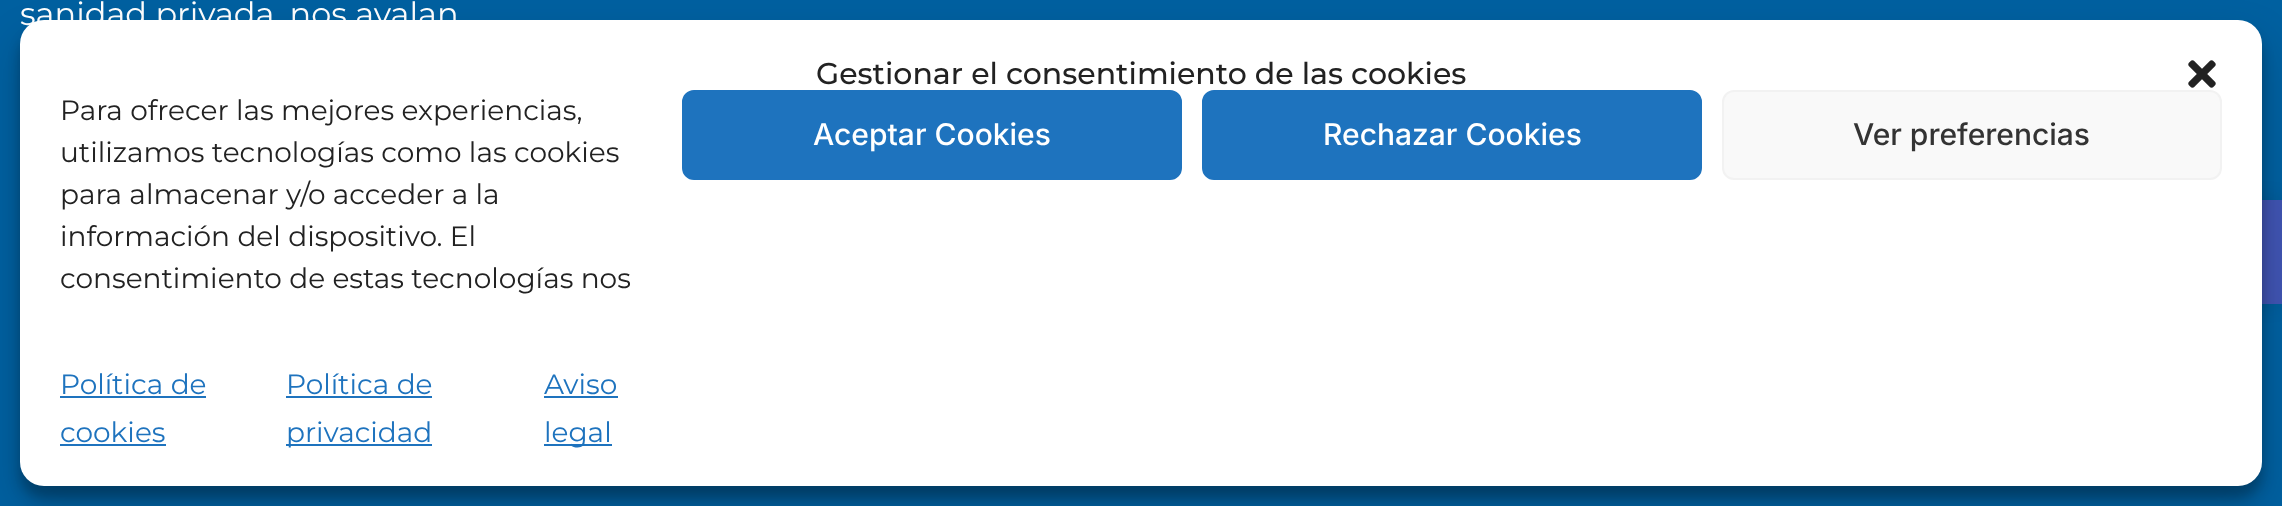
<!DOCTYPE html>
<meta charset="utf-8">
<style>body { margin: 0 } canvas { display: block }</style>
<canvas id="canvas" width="2282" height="506"></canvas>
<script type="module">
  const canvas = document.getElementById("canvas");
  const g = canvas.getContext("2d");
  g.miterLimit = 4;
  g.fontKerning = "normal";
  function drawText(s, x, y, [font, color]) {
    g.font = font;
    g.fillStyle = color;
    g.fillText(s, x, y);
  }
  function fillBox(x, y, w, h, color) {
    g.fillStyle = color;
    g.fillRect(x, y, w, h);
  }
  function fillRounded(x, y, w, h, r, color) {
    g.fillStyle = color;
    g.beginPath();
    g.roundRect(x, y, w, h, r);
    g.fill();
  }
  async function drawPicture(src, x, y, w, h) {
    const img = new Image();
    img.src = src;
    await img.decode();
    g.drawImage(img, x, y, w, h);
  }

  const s1 = ["32px Montserrat", "#FFFFFF"];
  const s2 = ["500 30px Montserrat", "#222222"];
  const s3 = ["28px Montserrat", "#222222"];
  const s4 = ["500 30px Inter", "#FFFFFF"];
  const s5 = ["500 30px Inter", "#333333"];
  const s6 = ["28px Montserrat", "#1E73BE"];

  fillBox(0, 0, 2282, 506, "#0060A0");
  drawText("sanidad privada, nos avalan", 20, 25, s1);
  g.fillStyle = "rgba(0, 0, 0, 0.1)";
  g.filter = "blur(10px)";
  g.beginPath();
  g.rect(2178, 200, 104, 104);
  g.fill();
  g.filter = "none";
  fillBox(2262, 200, 20, 104, "#4054B2");
  g.fillStyle = "rgba(0, 0, 0, 0.23)";
  g.filter = "blur(6px)";
  g.beginPath();
  g.roundRect(20, 32, 2242, 466, 24);
  g.fill();
  g.filter = "none";
  g.fillStyle = "rgba(0, 0, 0, 0.19)";
  g.filter = "blur(20px)";
  g.beginPath();
  g.roundRect(20, 40, 2242, 466, 24);
  g.fill();
  g.filter = "none";
  fillRounded(20, 20, 2242, 466, 24, "#FFFFFF");
  drawText("Gestionar el consentimiento de las cookies", 816, 84, s2);
  await drawPicture("pic1.png", 2188, 60, 28, 28);
  drawText("Para ofrecer las mejores experiencias,", 60, 120, s3);
  drawText("utilizamos tecnologías como las cookies", 60, 162, s3);
  drawText("para almacenar y/o acceder a la", 60, 204, s3);
  drawText("información del dispositivo. El", 60, 246, s3);
  drawText("consentimiento de estas tecnologías nos", 60, 288, s3);
  g.fillStyle = "#1E73BE";
  g.beginPath();
  g.roundRect(683, 91, 498, 88, 11);
  g.fill();
  g.strokeStyle = "#1E73BE";
  g.lineWidth = 2;
  g.stroke();
  drawText("Aceptar Cookies", 813, 145, s4);
  g.fillStyle = "#1E73BE";
  g.beginPath();
  g.roundRect(1203, 91, 498, 88, 11);
  g.fill();
  g.stroke();
  drawText("Rechazar Cookies", 1323, 145, s4);
  g.fillStyle = "#F9F9F9";
  g.beginPath();
  g.roundRect(1723, 91, 498, 88, 11);
  g.fill();
  g.strokeStyle = "#F2F2F2";
  g.stroke();
  drawText("Ver preferencias", 1853, 145, s5);
  drawText("Política de", 60, 394, s6);
  fillBox(60, 396, 146, 2, "#1E73BE");
  drawText("cookies", 60, 442, s6);
  fillBox(60, 444, 106, 2, "#1E73BE");
  drawText("Política de", 286, 394, s6);
  fillBox(286, 396, 146, 2, "#1E73BE");
  fillBox(286, 444, 146, 2, "#1E73BE");
  drawText("privacidad", 286, 442, s6);
  drawText("Aviso", 544, 394, s6);
  fillBox(544, 396, 74, 2, "#1E73BE");
  fillBox(544, 444, 68, 2, "#1E73BE");
  drawText("legal", 544, 442, s6);
</script>
